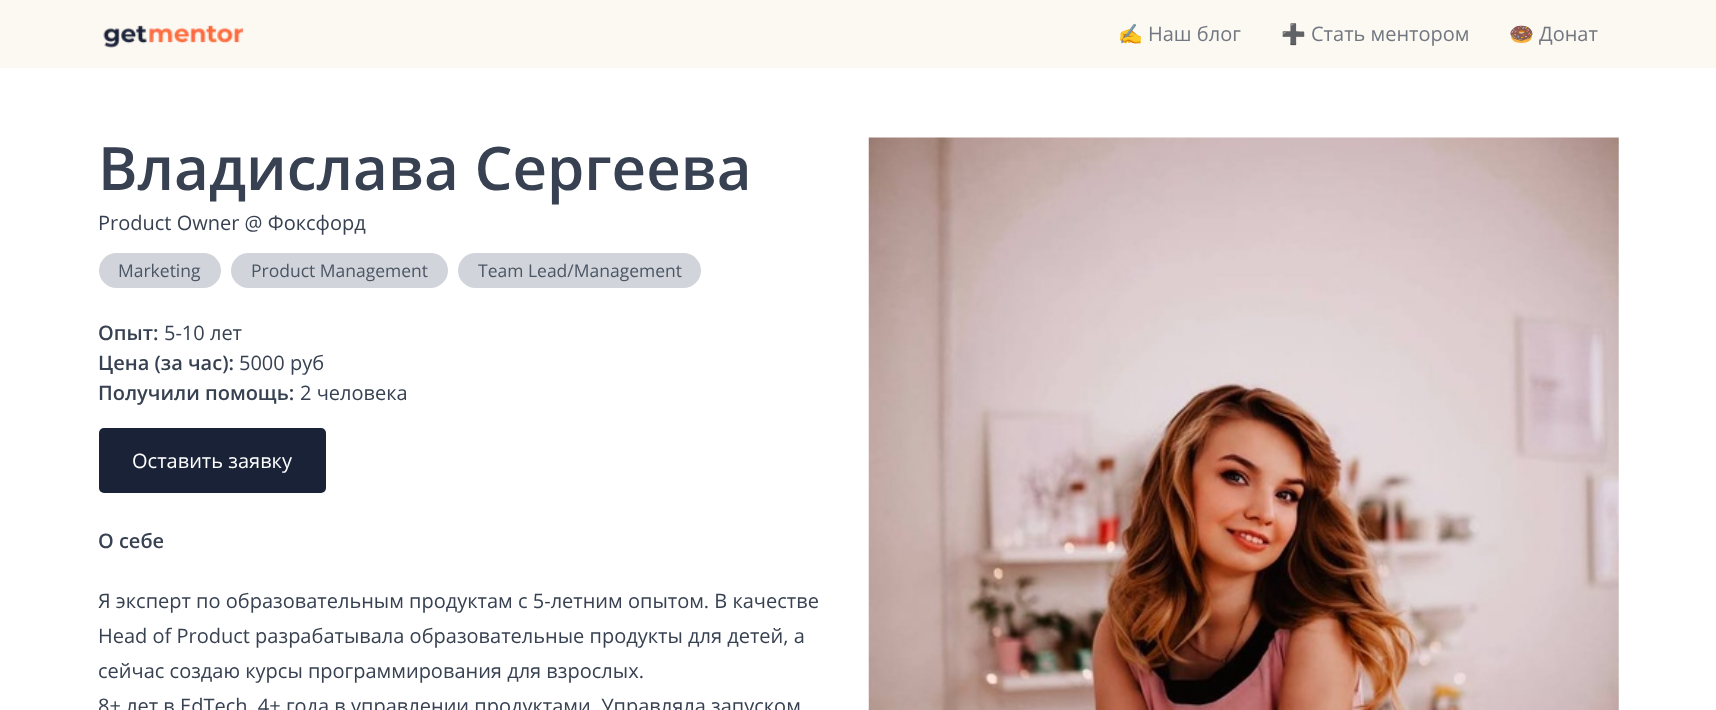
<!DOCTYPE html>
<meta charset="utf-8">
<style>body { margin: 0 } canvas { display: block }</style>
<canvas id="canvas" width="1716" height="710"></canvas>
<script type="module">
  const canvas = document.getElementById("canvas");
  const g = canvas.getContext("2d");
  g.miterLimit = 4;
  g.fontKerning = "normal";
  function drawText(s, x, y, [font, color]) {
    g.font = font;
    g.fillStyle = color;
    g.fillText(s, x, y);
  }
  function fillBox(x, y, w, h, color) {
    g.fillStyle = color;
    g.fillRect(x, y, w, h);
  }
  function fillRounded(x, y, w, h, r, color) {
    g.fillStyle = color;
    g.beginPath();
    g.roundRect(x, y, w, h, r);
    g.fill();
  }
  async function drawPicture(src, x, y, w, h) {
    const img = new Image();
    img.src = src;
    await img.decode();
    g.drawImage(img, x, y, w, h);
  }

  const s1 = ["20px Noto Color Emoji", "#727881"];
  const s2 = ["20px Open Sans", "#727881"];
  const s3 = ["600 60px Open Sans", "#374151"];
  const s4 = ["20px Open Sans", "#374151"];
  const s5 = ["17.5px Open Sans", "#4B5563"];
  const s6 = ["600 20px Open Sans", "#374151"];
  const s7 = ["20px Open Sans", "#FFFFFF"];

  fillBox(0, 0, 1716, 710, "#FFFFFF");
  fillBox(0, 0, 1716, 68, "#FCF8F2");
  await drawPicture("pic1.png", 103, 25, 141, 23);
  drawText("✍️", 1118, 41, s1);
  drawText("Наш блог", 1148, 41, s2);
  drawText("➕", 1281, 41, s1);
  drawText("Стать ментором", 1311, 41, s2);
  drawText("🍩", 1509, 41, s1);
  drawText("Донат", 1539, 41, s2);
  drawText("Владислава Сергеева", 98, 190, s3);
  drawText("Product Owner @ Фоксфорд", 98, 230, s4);
  fillRounded(99, 253, 122, 35, 17.5, "#D1D5DB");
  drawText("Marketing", 118, 277, s5);
  fillRounded(231, 253, 217, 35, 17.5, "#D1D5DB");
  drawText("Product Management", 251, 277, s5);
  fillRounded(458, 253, 243, 35, 17.5, "#D1D5DB");
  drawText("Team Lead/Management", 478, 277, s5);
  drawText("Опыт:", 98, 340, s6);
  drawText("5-10 лет", 164, 340, s4);
  drawText("Цена (за час):", 98, 370, s6);
  drawText("5000 руб", 239, 370, s4);
  drawText("Получили помощь:", 98, 400, s6);
  drawText("2 человека", 300, 400, s4);
  fillRounded(99, 428, 227, 65, 5, "#1A2238");
  drawText("Оставить заявку", 132, 468, s7);
  drawText("О себе", 98, 548, s6);
  drawText("Я эксперт по образовательным продуктам с 5-летним опытом. В качестве", 98, 608, s4);
  drawText("Head of Product разрабатывала образовательные продукты для детей, а", 98, 643, s4);
  drawText("сейчас создаю курсы программирования для взрослых.", 98, 678, s4);
  drawText("8+ лет в EdTech, 4+ года в управлении продуктами. Управляла запуском", 98, 713, s4);
  await drawPicture("pic2.png", 868, 137, 751, 573);
</script>
